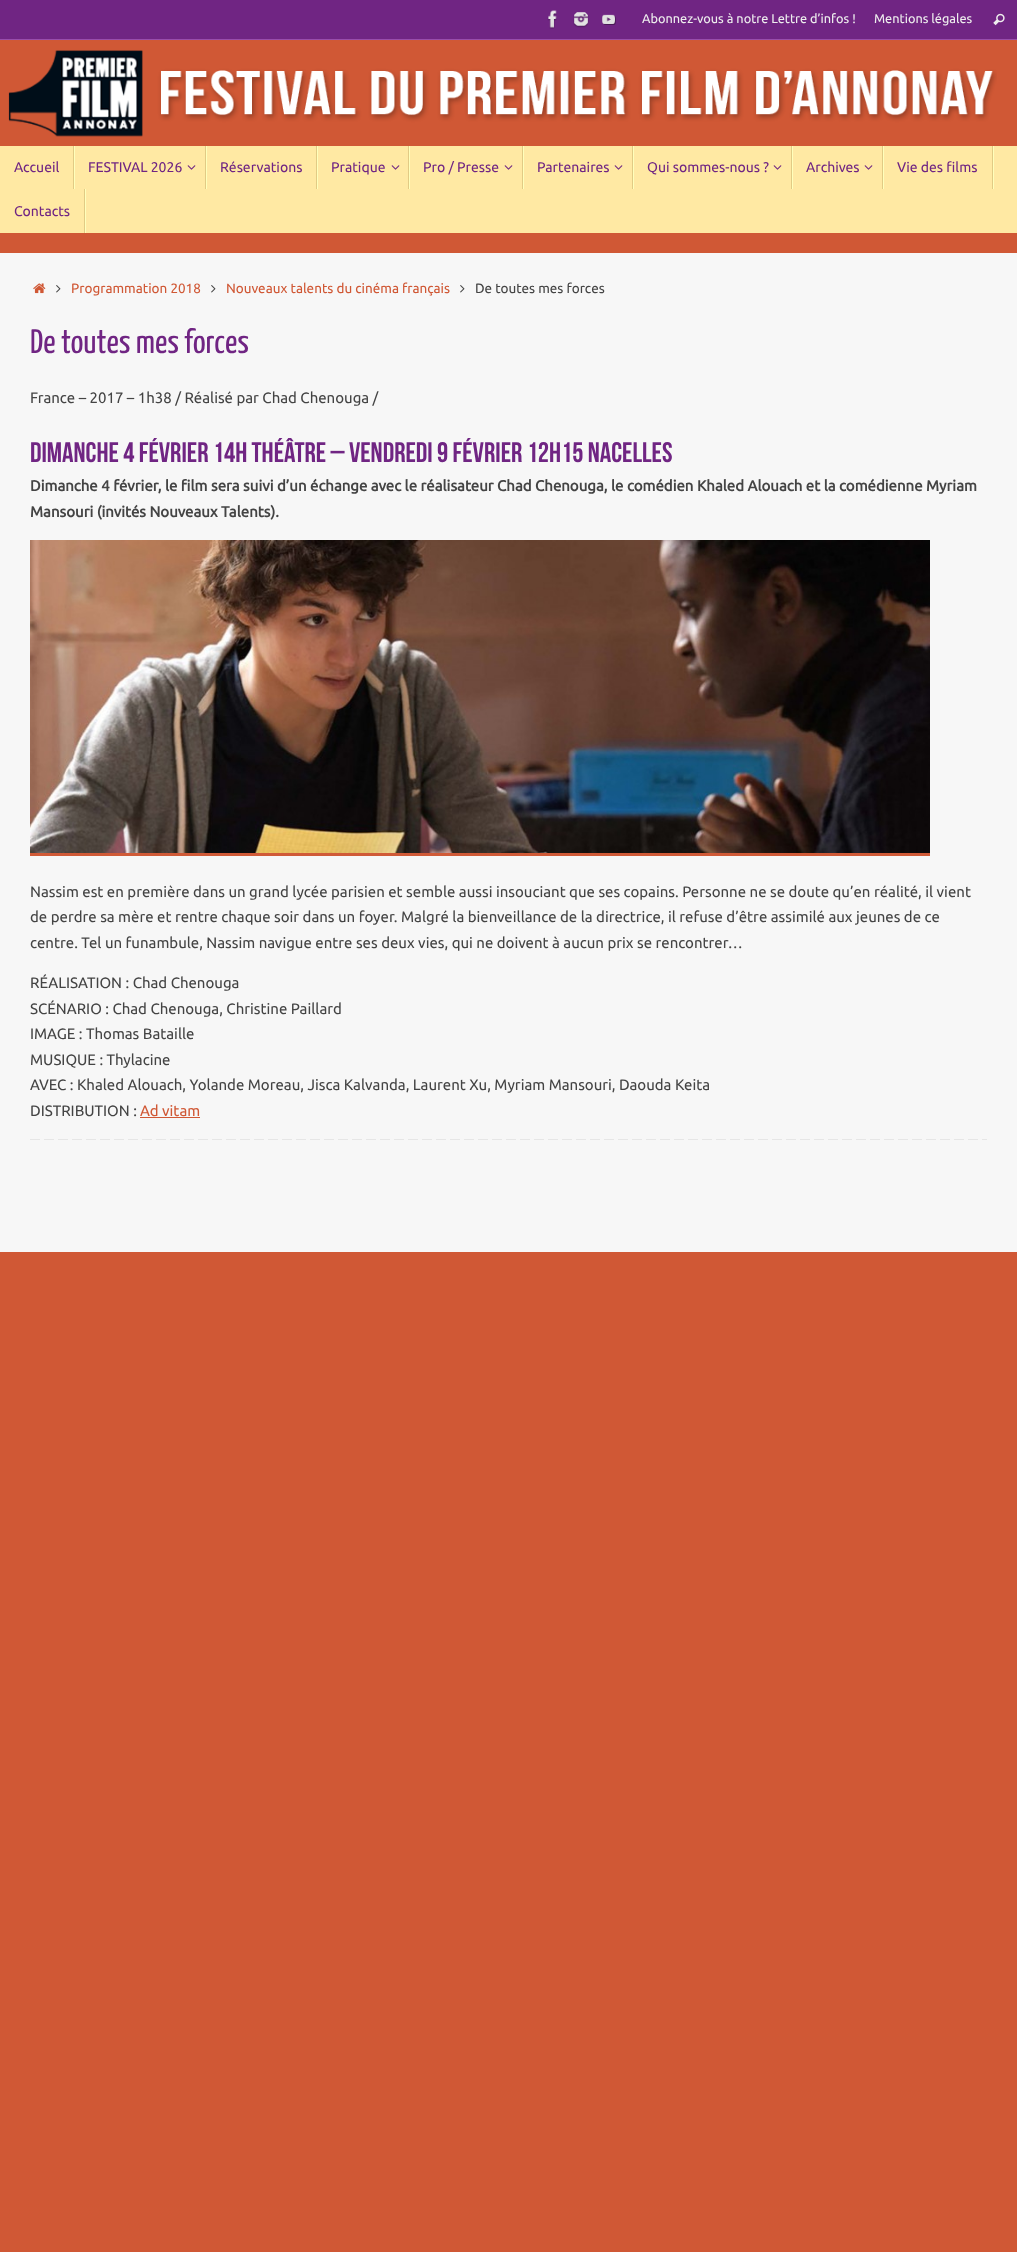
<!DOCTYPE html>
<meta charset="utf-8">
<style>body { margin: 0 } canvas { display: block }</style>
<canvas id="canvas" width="1017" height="2252"></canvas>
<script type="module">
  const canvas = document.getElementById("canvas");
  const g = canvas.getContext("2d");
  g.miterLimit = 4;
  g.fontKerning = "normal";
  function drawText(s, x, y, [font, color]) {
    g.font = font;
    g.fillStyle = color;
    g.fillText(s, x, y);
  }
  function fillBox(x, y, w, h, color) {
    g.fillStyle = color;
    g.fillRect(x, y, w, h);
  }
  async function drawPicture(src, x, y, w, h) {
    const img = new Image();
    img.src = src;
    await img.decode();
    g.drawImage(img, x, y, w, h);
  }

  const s1 = ["12.75px Ubuntu", "#EEEEEE"];
  const s2 = ["14px Ubuntu", "#702583"];
  const s3 = ["13.5px Ubuntu", "#D05835"];
  const s4 = ["13.5px Ubuntu", "#444444"];
  const s5 = ["34px Yanone Kaffeesatz", "#702583"];
  const s6 = ["15px Ubuntu", "#444444"];
  const s7 = ["28.2px Bebas Neue", "#702583"];
  const s8 = ["bold 15px Ubuntu", "#444444"];
  const s9 = ["15px Ubuntu", "#D05835"];

  fillBox(0, 0, 1017, 2252, "#D05835");
  fillBox(0, 0, 1017, 39, "#702583");
  fillBox(0, 39, 1017, 1, "#984DAB");
  await drawPicture("pic1.png", 547, 10, 10, 19);
  await drawPicture("pic2.png", 573, 12, 16, 16);
  await drawPicture("pic3.png", 602, 14, 14, 11);
  drawText("Abonnez-vous à notre Lettre d’infos !", 642, 23, s1);
  drawText("Mentions légales", 874, 23, s1);
  await drawPicture("pic4.png", 993, 13, 12, 13);
  await drawPicture("pic5.png", 8, 50, 989, 87);
  fillBox(0, 146, 1017, 87, "#FFE9A3");
  fillBox(74, 146, 1, 43, "#FFFFBB");
  fillBox(73, 146, 1, 43, "#E1CB85");
  drawText("Accueil", 14, 172, s2);
  fillBox(206, 146, 1, 43, "#FFFFBB");
  fillBox(205, 146, 1, 43, "#E1CB85");
  drawText("FESTIVAL 2026", 88, 172, s2);
  await drawPicture("pic6.png", 187, 165, 9, 5);
  fillBox(317, 146, 1, 43, "#FFFFBB");
  fillBox(316, 146, 1, 43, "#E1CB85");
  drawText("Réservations", 220, 172, s2);
  fillBox(409, 146, 1, 43, "#FFFFBB");
  fillBox(408, 146, 1, 43, "#E1CB85");
  drawText("Pratique", 331, 172, s2);
  await drawPicture("pic6.png", 391, 165, 9, 5);
  fillBox(523, 146, 1, 43, "#FFFFBB");
  fillBox(522, 146, 1, 43, "#E1CB85");
  drawText("Pro / Presse", 423, 172, s2);
  await drawPicture("pic6.png", 504, 165, 9, 5);
  fillBox(633, 146, 1, 43, "#FFFFBB");
  fillBox(632, 146, 1, 43, "#E1CB85");
  drawText("Partenaires", 537, 172, s2);
  await drawPicture("pic6.png", 614, 165, 9, 5);
  fillBox(792, 146, 1, 43, "#FFFFBB");
  fillBox(791, 146, 1, 43, "#E1CB85");
  drawText("Qui sommes-nous ?", 647, 172, s2);
  await drawPicture("pic6.png", 773, 165, 9, 5);
  fillBox(883, 146, 1, 43, "#FFFFBB");
  fillBox(882, 146, 1, 43, "#E1CB85");
  drawText("Archives", 806, 172, s2);
  await drawPicture("pic6.png", 864, 165, 9, 5);
  fillBox(993, 146, 1, 43, "#FFFFBB");
  fillBox(992, 146, 1, 43, "#E1CB85");
  drawText("Vie des films", 897, 172, s2);
  fillBox(85, 189, 1, 44, "#FFFFBB");
  fillBox(84, 189, 1, 44, "#E1CB85");
  drawText("Contacts", 14, 216, s2);
  fillBox(0, 253, 1017, 999, "#F7F7F7");
  await drawPicture("pic7.png", 33, 283, 13, 11);
  await drawPicture("pic8.png", 56, 285, 5, 8);
  drawText("Programmation 2018", 71, 293, s3);
  await drawPicture("pic8.png", 211, 285, 5, 8);
  drawText("Nouveaux talents du cinéma français", 226, 293, s3);
  await drawPicture("pic8.png", 460, 285, 5, 8);
  drawText("De toutes mes forces", 475, 293, s4);
  drawText("De toutes mes forces", 30, 353, s5);
  drawText("France – 2017 – 1h38 / Réalisé par Chad Chenouga /", 30, 403, s6);
  drawText("DIMANCHE 4 FÉVRIER 14h THÉÂTRE – VENDREDI 9 FÉVRIER 12h15 NACELLES", 30, 462, s7);
  drawText("Dimanche 4 février, le film sera suivi d’un échange avec le réalisateur Chad Chenouga, le comédien Khaled Alouach et la comédienne Myriam", 30, 491, s8);
  drawText("Mansouri (invités Nouveaux Talents).", 30, 517, s8);
  await drawPicture("pic9.png", 30, 540, 900, 313);
  fillBox(30, 853, 900, 3, "#D05A37");
  drawText("Nassim est en première dans un grand lycée parisien et semble aussi insouciant que ses copains. Personne ne se doute qu’en réalité, il vient", 30, 897, s6);
  drawText("de perdre sa mère et rentre chaque soir dans un foyer. Malgré la bienveillance de la directrice, il refuse d’être assimilé aux jeunes de ce", 30, 922, s6);
  drawText("centre. Tel un funambule, Nassim navigue entre ses deux vies, qui ne doivent à aucun prix se rencontrer…", 30, 948, s6);
  drawText("RÉALISATION : Chad Chenouga", 30, 988, s6);
  drawText("SCÉNARIO : Chad Chenouga, Christine Paillard", 30, 1014, s6);
  drawText("IMAGE : Thomas Bataille", 30, 1039, s6);
  drawText("MUSIQUE : Thylacine", 30, 1065, s6);
  drawText("AVEC : Khaled Alouach, Yolande Moreau, Jisca Kalvanda, Laurent Xu, Myriam Mansouri, Daouda Keita", 30, 1090, s6);
  drawText("DISTRIBUTION :", 30, 1116, s6);
  drawText("Ad vitam", 140, 1116, s9);
  fillBox(140, 1117, 60, 1, "#D05835");
  await drawPicture("pic10.png", 30, 1139, 957, 1);
</script>
